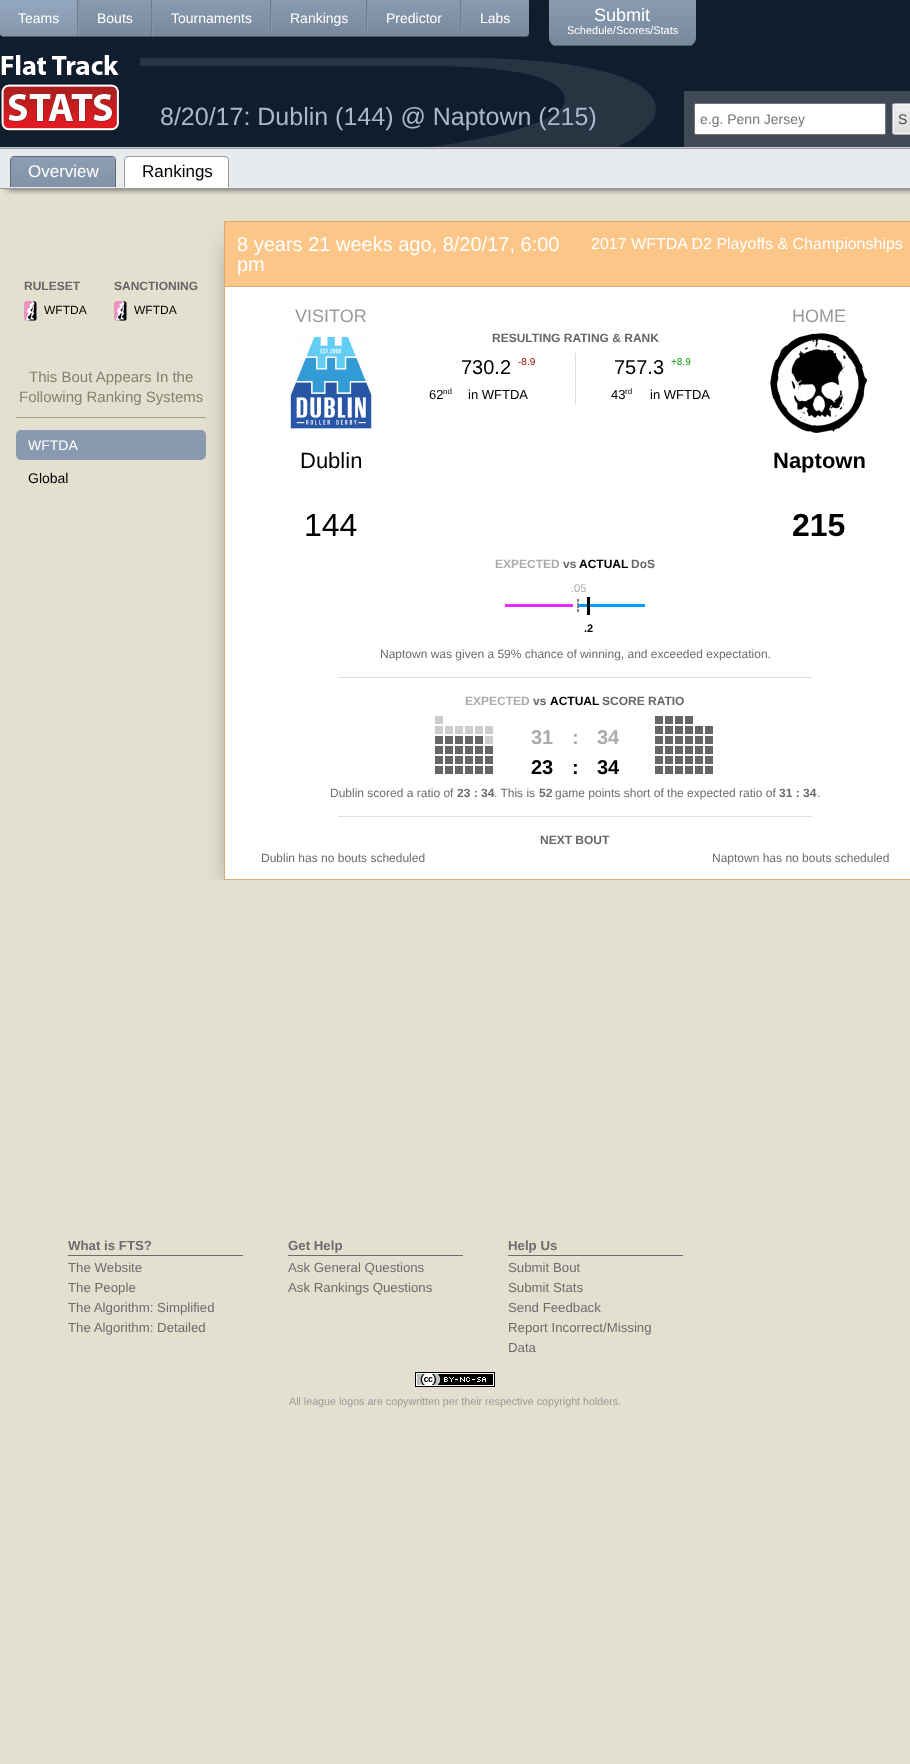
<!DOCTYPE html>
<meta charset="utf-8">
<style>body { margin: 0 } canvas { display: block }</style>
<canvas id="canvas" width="910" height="1764"></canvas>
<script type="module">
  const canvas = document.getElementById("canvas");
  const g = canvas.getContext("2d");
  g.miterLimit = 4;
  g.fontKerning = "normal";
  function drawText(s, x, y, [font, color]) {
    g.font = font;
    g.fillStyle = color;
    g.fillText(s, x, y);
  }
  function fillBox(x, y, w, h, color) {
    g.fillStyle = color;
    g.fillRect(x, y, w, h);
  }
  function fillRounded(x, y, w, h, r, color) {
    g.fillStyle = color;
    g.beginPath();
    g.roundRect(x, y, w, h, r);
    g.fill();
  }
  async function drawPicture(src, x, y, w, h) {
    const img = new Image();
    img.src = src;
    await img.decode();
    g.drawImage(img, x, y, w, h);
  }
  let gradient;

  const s1 = ["14px Liberation Sans", "#FFFFFF"];
  const s2 = ["18px Liberation Sans", "#FFFFFF"];
  const s3 = ["11px Liberation Sans", "#FFFFFF"];
  const s4 = ["25px Liberation Sans", "#A9B8CA"];
  const s5 = ["14px Liberation Sans", "#757575"];
  const s6 = ["14px Liberation Sans", "#444444"];
  const s7 = ["17px Liberation Sans", "#FFFFFF"];
  const s8 = ["17px Liberation Sans", "#000000"];
  const s9 = ["bold 12px Liberation Sans", "#666666"];
  const s10 = ["12px Liberation Sans", "#000000"];
  const s11 = ["15px Liberation Sans", "#85806F"];
  const s12 = ["14px Liberation Sans", "#000000"];
  const s13 = ["20px Liberation Sans", "#FFFFFF"];
  const s14 = ["16px Liberation Sans", "#FFFFFF"];
  const s15 = ["18px Liberation Sans", "#999999"];
  const s16 = ["22px Liberation Sans", "#000000"];
  const s17 = ["32px Liberation Sans", "#000000"];
  const s18 = ["20px Liberation Sans", "#000000"];
  const s19 = ["10px Liberation Sans", "#990000"];
  const s20 = ["13px Liberation Sans", "#000000"];
  const s21 = ["8px Liberation Sans", "#000000"];
  const s22 = ["10px Liberation Sans", "#009900"];
  const s23 = ["bold 22px Liberation Sans", "#000000"];
  const s24 = ["bold 32px Liberation Sans", "#000000"];
  const s25 = ["bold 12px Liberation Sans", "#ABABAB"];
  const s26 = ["bold 12px Liberation Sans", "#000000"];
  const s27 = ["11px Liberation Sans", "#ABABAB"];
  const s28 = ["bold 11px Liberation Sans", "#000000"];
  const s29 = ["12px Liberation Sans", "#6C6C6C"];
  const s30 = ["bold 20px Liberation Sans", "#ABABAB"];
  const s31 = ["bold 20px Liberation Sans", "#000000"];
  const s32 = ["bold 12px Liberation Sans", "#6C6C6C"];
  const s33 = ["bold 13.25px Liberation Sans", "#6C6C6C"];
  const s34 = ["13.25px Liberation Sans", "#6C6C6C"];
  const s35 = ["10.7px Liberation Sans", "#999999"];

  fillBox(0, 0, 910, 1764, "#E4E0CF");
  fillBox(0, 0, 910, 147, "#101D2D");
  fillBox(0, 147, 910, 1, "#CCCCCC");
  fillBox(0, 148, 910, 1, "#9A9D9F");
  await drawPicture("pic1.png", 140, 57, 516, 90);
  g.save();
  g.beginPath();
  g.roundRect(0, 0, 529, 37, [0, 0, 4, 4]);
  g.clip();
  gradient = g.createLinearGradient(265, 0, 265, 36);
  gradient.addColorStop(0, "#889BB0");
  gradient.addColorStop(1, "#79899C");
  g.fillStyle = gradient;
  g.fillRect(0, 0, 529, 36);
  g.restore();
  fillBox(2, 36, 525, 1, "#4D5C6D");
  gradient = g.createLinearGradient(39, 0, 39, 36);
  gradient.addColorStop(0, "#93A8BF");
  gradient.addColorStop(1, "#8596AB");
  g.fillStyle = gradient;
  g.beginPath();
  g.roundRect(0, 0, 78, 36, [0, 0, 0, 4]);
  g.fill();
  fillBox(77, 0, 1, 36, "#6F7C8B");
  drawText("Teams", 18, 23, s1);
  fillBox(151, 0, 1, 36, "#6F7C8B");
  fillBox(78, 0, 1, 36, "#8495A8");
  drawText("Bouts", 97, 23, s1);
  fillBox(270, 0, 1, 36, "#6F7C8B");
  fillBox(152, 0, 1, 36, "#8495A8");
  drawText("Tournaments", 171, 23, s1);
  fillBox(366, 0, 1, 36, "#6F7C8B");
  fillBox(271, 0, 1, 36, "#8495A8");
  drawText("Rankings", 290, 23, s1);
  fillBox(460, 0, 1, 36, "#6F7C8B");
  fillBox(367, 0, 1, 36, "#8495A8");
  drawText("Predictor", 386, 23, s1);
  fillBox(461, 0, 1, 36, "#8495A8");
  drawText("Labs", 480, 23, s1);
  g.save();
  g.beginPath();
  g.roundRect(549, 0, 147, 46, [0, 0, 8, 8]);
  g.clip();
  gradient = g.createLinearGradient(623, 0, 623, 45);
  gradient.addColorStop(0, "#889BB0");
  gradient.addColorStop(1, "#79899C");
  g.fillStyle = gradient;
  g.fillRect(549, 0, 147, 45);
  g.restore();
  fillBox(553, 45, 139, 1, "#4D5C6D");
  drawText("Submit", 594, 21, s2);
  drawText("Schedule/Scores/Stats", 567, 34, s3);
  await drawPicture("pic2.png", 1, 55, 118, 76);
  drawText("8/20/17: Dublin (144) @ Naptown (215)", 160, 125, s4);
  fillBox(684, 91, 226, 56, "#404A57");
  g.fillStyle = "#FFFFFF";
  g.beginPath();
  g.roundRect(694.5, 103.5, 191, 31, 1.5);
  g.fill();
  g.strokeStyle = "#767676";
  g.stroke();
  drawText("e.g. Penn Jersey", 700, 124, s5);
  g.save();
  g.beginPath();
  g.roundRect(892, 103, 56, 32, 3);
  g.clip();
  gradient = g.createLinearGradient(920, 104, 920, 134);
  gradient.addColorStop(0, "#EEEEEE");
  gradient.addColorStop(1, "#DDDDDD");
  g.fillStyle = gradient;
  g.fillRect(892, 104, 18, 30);
  g.restore();
  g.beginPath();
  g.roundRect(893.5, 104.5, 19, 29, 1.5);
  g.strokeStyle = "#F1F6F6";
  g.stroke();
  g.beginPath();
  g.roundRect(892.5, 103.5, 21, 31, 2.5);
  g.strokeStyle = "#AAAAAA";
  g.stroke();
  drawText("S", 898, 124, s6);
  fillBox(0, 149, 910, 39, "#E7EBEE");
  g.save();
  g.beginPath();
  g.rect(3, 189, 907, 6);
  g.clip();
  g.fillStyle = "#666666";
  g.filter = "blur(3.5px)";
  g.beginPath();
  g.rect(8, 163, 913, 25);
  g.fill();
  g.filter = "none";
  g.filter = "blur(3.5px)";
  g.beginPath();
  g.rect(8, 171, 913, 17);
  g.fill();
  g.filter = "none";
  g.restore();
  fillBox(0, 188, 910, 1, "#999999");
  gradient = g.createLinearGradient(63, 157, 63, 187);
  gradient.addColorStop(0, "#8C9EB5");
  gradient.addColorStop(1, "#8293A8");
  g.fillStyle = gradient;
  g.beginPath();
  g.roundRect(11, 157, 104, 30, [3, 3, 0, 0]);
  g.fill();
  g.fillStyle = "#666666";
  g.beginPath();
  g.moveTo(14, 156);
  g.lineTo(112, 156);
  g.bezierCurveTo(114, 156, 116, 158, 116, 160);
  g.lineTo(116, 187);
  g.lineTo(10, 187);
  g.lineTo(10, 160);
  g.bezierCurveTo(10, 158, 12, 156, 14, 156);
  g.closePath();
  g.moveTo(14, 157);
  g.lineTo(112, 157);
  g.bezierCurveTo(114, 157, 115, 158, 115, 160);
  g.lineTo(115, 187);
  g.lineTo(11, 187);
  g.lineTo(11, 160);
  g.bezierCurveTo(11, 158, 12, 157, 14, 157);
  g.closePath();
  g.fill("evenodd");
  drawText("Overview", 28, 177, s7);
  g.beginPath();
  g.roundRect(124, 156, 105, 32, [4, 4, 0, 0]);
  g.fill();
  g.fillStyle = "#999999";
  g.beginPath();
  g.moveTo(128, 156);
  g.lineTo(125, 157);
  g.lineTo(126, 158);
  g.lineTo(128, 157);
  g.lineTo(225, 157);
  g.lineTo(227, 158);
  g.lineTo(228, 157);
  g.lineTo(225, 156);
  g.closePath();
  g.fill();
  g.beginPath();
  g.moveTo(229, 188);
  g.lineTo(229, 160);
  g.bezierCurveTo(229, 159, 228.5, 158, 228, 157);
  g.lineTo(227, 158);
  g.bezierCurveTo(228, 158, 228, 159, 228, 160);
  g.lineTo(228, 187);
  g.closePath();
  g.fill();
  g.fillStyle = "#FFFFFF";
  g.beginPath();
  g.moveTo(229, 188);
  g.lineTo(228, 187);
  g.lineTo(125, 187);
  g.lineTo(124, 188);
  g.closePath();
  g.fill();
  g.fillStyle = "#999999";
  g.beginPath();
  g.moveTo(124, 188);
  g.lineTo(125, 187);
  g.lineTo(125, 160);
  g.bezierCurveTo(125, 159, 125, 158, 126, 158);
  g.lineTo(125, 157);
  g.bezierCurveTo(124.5, 158, 124, 159, 124, 160);
  g.closePath();
  g.fill();
  drawText("Rankings", 142, 177, s8);
  drawText("RULESET", 24, 290, s9);
  await drawPicture("pic3.png", 24, 301, 13, 20);
  drawText("WFTDA", 44, 314, s10);
  drawText("SANCTIONING", 114, 290, s9);
  await drawPicture("pic3.png", 114, 301, 13, 20);
  drawText("WFTDA", 134, 314, s10);
  fillBox(16, 417, 190, 1, "#A49F8A");
  drawText("This Bout Appears In the", 29, 382, s11);
  drawText("Following Ranking Systems", 19, 402, s11);
  fillRounded(16, 430, 190, 30, 5, "#899AB0");
  drawText("WFTDA", 28, 450, s1);
  drawText("Global", 28, 483, s12);
  g.save();
  g.beginPath();
  g.rect(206, 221, 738, 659);
  g.clip();
  g.fillStyle = "#666666";
  g.filter = "blur(13.5px)";
  g.beginPath();
  g.rect(234, 245, 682, 639);
  g.fill();
  g.filter = "none";
  g.restore();
  fillBox(225, 287, 685, 592, "#FFFFFF");
  g.strokeStyle = "#DAAC77";
  g.strokeRect(224.5, 221.5, 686, 658);
  fillBox(225, 222, 685, 64, "#FDC689");
  fillBox(225, 286, 685, 1, "#DAAC77");
  drawText("8 years 21 weeks ago, 8/20/17, 6:00", 237, 251, s13);
  drawText("pm", 237, 271, s13);
  drawText("2017 WFTDA D2 Playoffs & Championships", 591, 249, s14);
  drawText("VISITOR", 295, 322, s15);
  await drawPicture("pic4.png", 290, 336, 82, 93);
  drawText("Dublin", 300, 468, s16);
  drawText("144", 304, 536, s17);
  drawText("RESULTING RATING & RANK", 492, 342, s9);
  fillBox(575, 353, 1, 52, "#DDDDDD");
  drawText("730.2", 461, 374, s18);
  drawText("-8.9", 518, 365, s19);
  drawText("62", 429, 399, s20);
  drawText("nd", 443, 394, s21);
  drawText("in WFTDA", 468, 399, s20);
  drawText("757.3", 614, 374, s18);
  drawText("+8.9", 671, 365, s22);
  drawText("43", 611, 399, s20);
  drawText("rd", 625, 394, s21);
  drawText("in WFTDA", 650, 399, s20);
  drawText("HOME", 792, 322, s15);
  await drawPicture("pic5.png", 770, 333, 97, 100);
  drawText("Naptown", 773, 468, s23);
  drawText("215", 792, 536, s24);
  drawText("EXPECTED", 495, 568, s25);
  drawText("vs", 563, 568, s9);
  drawText("ACTUAL", 579, 568, s26);
  drawText("DoS", 631, 568, s9);
  drawText(".05", 571, 592, s27);
  await drawPicture("pic6.png", 505, 597, 140, 18);
  drawText(".2", 584, 632, s28);
  drawText("Naptown was given a 59% chance of winning, and exceeded expectation.", 380, 658, s29);
  fillBox(338, 677, 474, 1, "#DDDDDD");
  drawText("EXPECTED", 465, 705, s25);
  drawText("vs", 533, 705, s9);
  drawText("ACTUAL", 550, 705, s26);
  drawText("SCORE RATIO", 602, 705, s9);
  await drawPicture("pic7.png", 435, 716, 58, 58);
  drawText("31", 531, 744, s30);
  drawText(":", 572, 744, s30);
  drawText("34", 597, 744, s30);
  await drawPicture("pic8.png", 655, 716, 58, 58);
  drawText("23", 531, 774, s31);
  drawText(":", 572, 774, s31);
  drawText("34", 597, 774, s31);
  drawText("Dublin scored a ratio of", 330, 797, s29);
  drawText("23 : 34", 457, 797, s32);
  drawText(". This is", 494, 797, s29);
  drawText("52", 539, 797, s32);
  drawText("game points short of the expected ratio of", 555, 797, s29);
  drawText("31 : 34", 779, 797, s32);
  drawText(".", 817, 797, s29);
  fillBox(338, 816, 474, 1, "#DDDDDD");
  drawText("NEXT BOUT", 540, 844, s9);
  drawText("Dublin has no bouts scheduled", 261, 862, s29);
  drawText("Naptown has no bouts scheduled", 712, 862, s29);
  fillBox(68, 1255, 175, 1, "#6C6C6C");
  drawText("What is FTS?", 68, 1250, s33);
  drawText("The Website", 68, 1272, s34);
  drawText("The People", 68, 1292, s34);
  drawText("The Algorithm: Simplified", 68, 1312, s34);
  drawText("The Algorithm: Detailed", 68, 1332, s34);
  fillBox(288, 1255, 175, 1, "#6C6C6C");
  drawText("Get Help", 288, 1250, s33);
  drawText("Ask General Questions", 288, 1272, s34);
  drawText("Ask Rankings Questions", 288, 1292, s34);
  fillBox(508, 1255, 175, 1, "#6C6C6C");
  drawText("Help Us", 508, 1250, s33);
  drawText("Submit Bout", 508, 1272, s34);
  drawText("Submit Stats", 508, 1292, s34);
  drawText("Send Feedback", 508, 1312, s34);
  drawText("Report Incorrect/Missing", 508, 1332, s34);
  drawText("Data", 508, 1352, s34);
  await drawPicture("pic9.png", 415, 1372, 80, 15);
  drawText("All league logos are copywritten per their respective copyright holders.", 289, 1405, s35);
</script>
